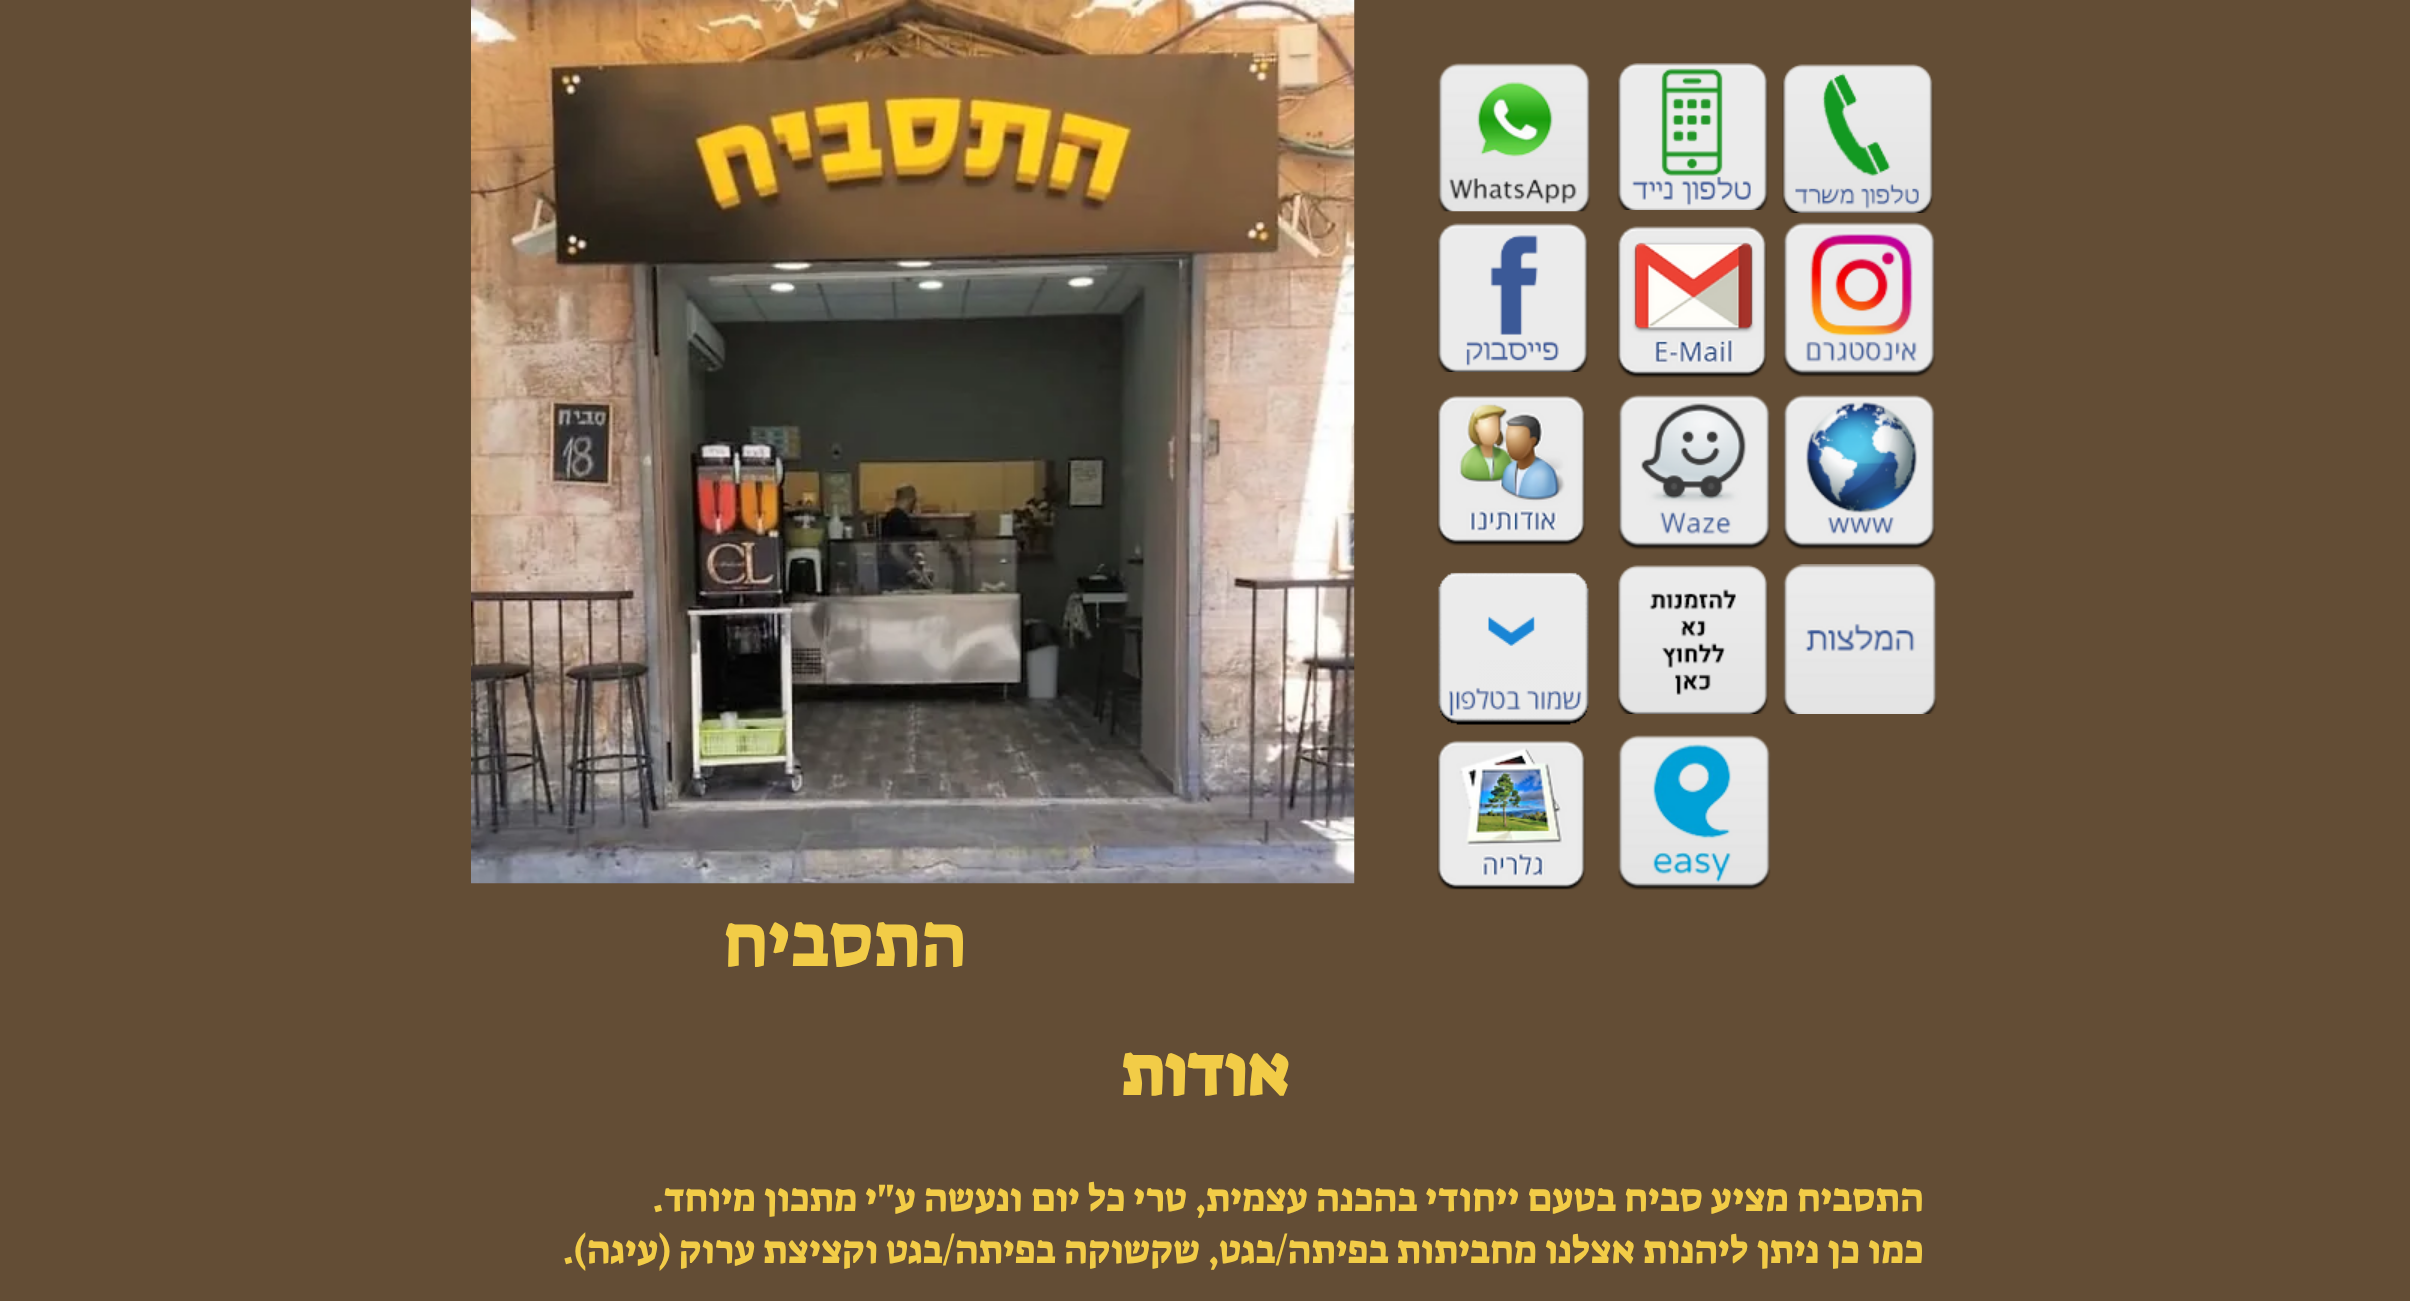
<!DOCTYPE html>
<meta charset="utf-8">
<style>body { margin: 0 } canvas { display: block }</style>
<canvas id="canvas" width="2410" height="1301"></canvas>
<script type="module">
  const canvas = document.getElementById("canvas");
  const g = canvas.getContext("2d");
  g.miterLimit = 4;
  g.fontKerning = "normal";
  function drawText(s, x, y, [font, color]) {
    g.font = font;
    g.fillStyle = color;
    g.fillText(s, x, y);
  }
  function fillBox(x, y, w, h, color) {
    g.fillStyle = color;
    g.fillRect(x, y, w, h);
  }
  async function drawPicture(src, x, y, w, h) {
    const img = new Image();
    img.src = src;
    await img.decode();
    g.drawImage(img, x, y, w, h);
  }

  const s1 = ["75px Suez One", "#F2CC47"];
  const s2 = ["bold 69px Suez One", "#F2CC47"];
  const s3 = ["39px Suez One", "#F2CC47"];

  fillBox(0, 0, 2410, 1301, "#634D35");
  await drawPicture("pic1.png", 1782, 64, 152, 149);
  await drawPicture("pic2.png", 1617, 63, 152, 147);
  await drawPicture("pic3.png", 1438, 63, 153, 149);
  await drawPicture("pic4.png", 471, 0, 884, 884);
  await drawPicture("pic5.png", 1783, 222, 153, 155);
  await drawPicture("pic6.png", 1617, 226, 150, 152);
  await drawPicture("pic7.png", 1437, 223, 152, 149);
  await drawPicture("pic8.png", 1783, 394, 153, 156);
  await drawPicture("pic9.png", 1618, 394, 153, 156);
  await drawPicture("pic10.png", 1437, 395, 149, 151);
  await drawPicture("pic11.png", 1783, 564, 154, 150);
  await drawPicture("pic12.png", 1617, 565, 152, 149);
  await drawPicture("pic13.png", 1438, 572, 151, 153);
  await drawPicture("pic14.png", 1618, 735, 153, 155);
  await drawPicture("pic15.png", 1437, 740, 149, 150);
  g.direction = "rtl";
  drawText("התסביח", 967, 966, s1);
  drawText("אודות", 1289, 1095, s2);
  drawText("התסביח מציע סביח בטעם ייחודי בהכנה עצמית, טרי כל יום ונעשה ע\"י מתכון מיוחד.", 1924, 1211, s3);
  drawText("כמו כן ניתן ליהנות אצלנו מחביתות בפיתה/בגט, שקשוקה בפיתה/בגט וקציצת ערוק (עיגה).", 1924, 1263, s3);
</script>
